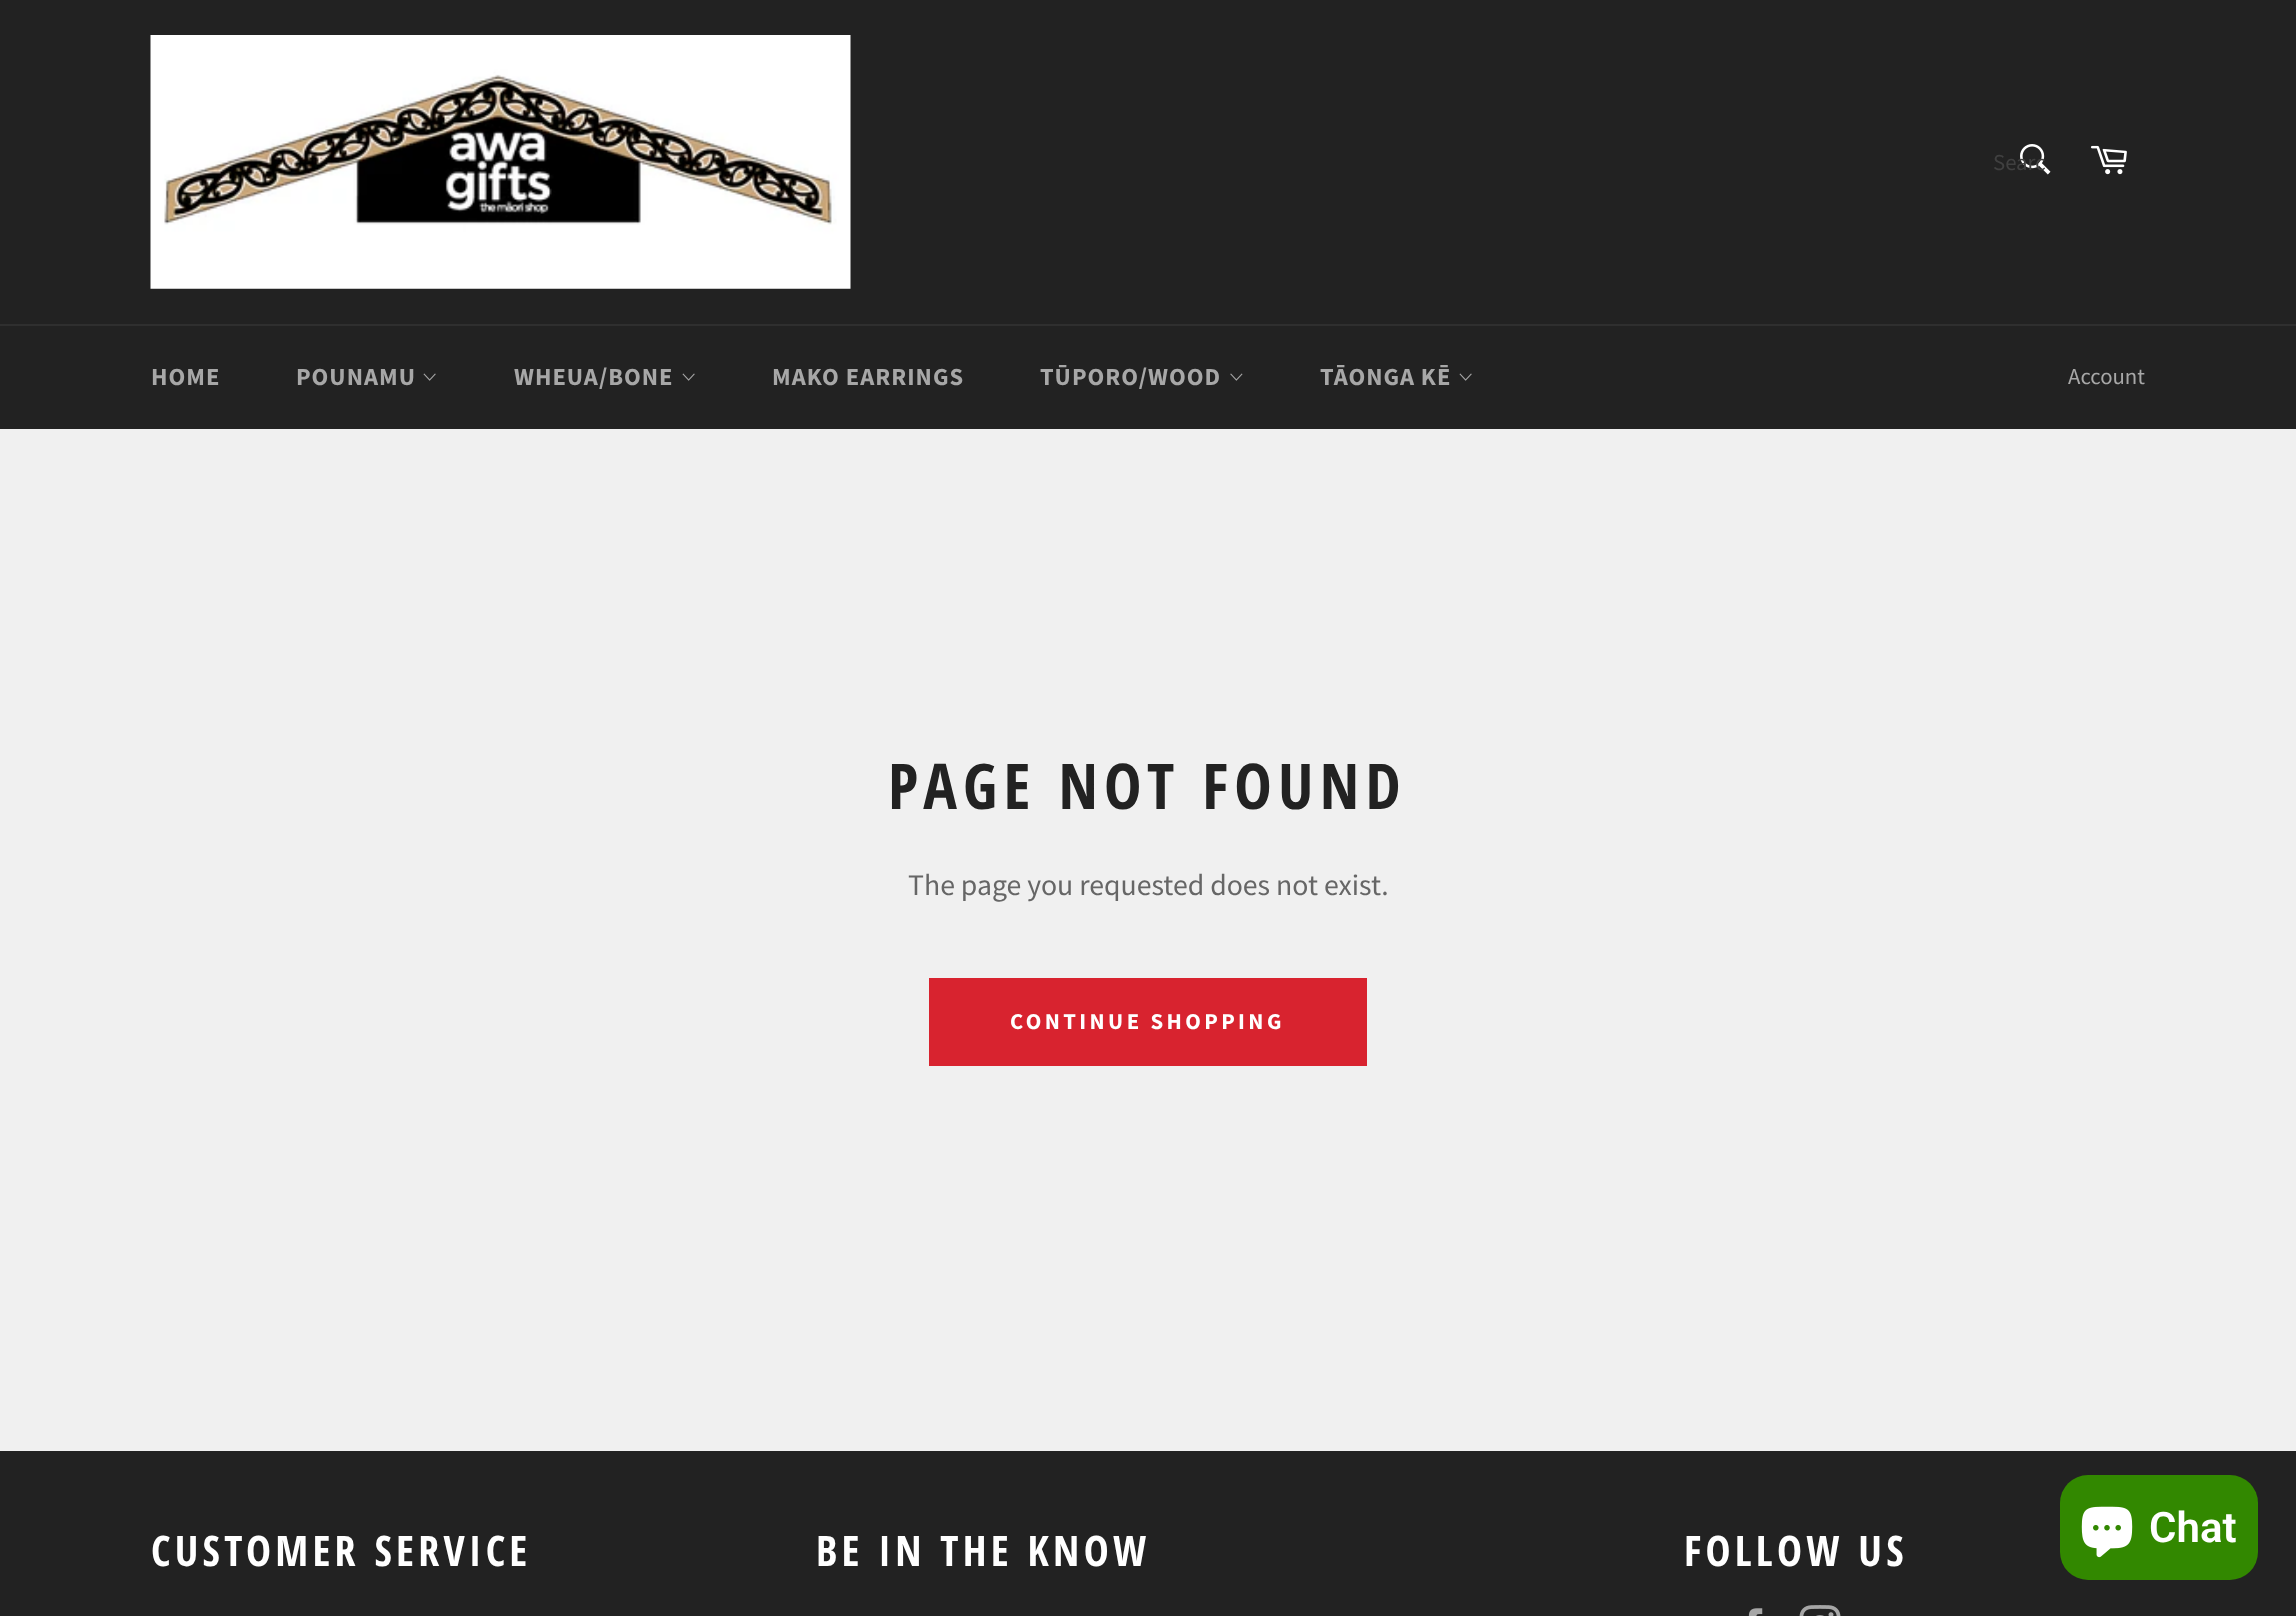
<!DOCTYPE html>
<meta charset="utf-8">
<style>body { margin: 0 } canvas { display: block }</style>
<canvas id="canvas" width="2296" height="1616"></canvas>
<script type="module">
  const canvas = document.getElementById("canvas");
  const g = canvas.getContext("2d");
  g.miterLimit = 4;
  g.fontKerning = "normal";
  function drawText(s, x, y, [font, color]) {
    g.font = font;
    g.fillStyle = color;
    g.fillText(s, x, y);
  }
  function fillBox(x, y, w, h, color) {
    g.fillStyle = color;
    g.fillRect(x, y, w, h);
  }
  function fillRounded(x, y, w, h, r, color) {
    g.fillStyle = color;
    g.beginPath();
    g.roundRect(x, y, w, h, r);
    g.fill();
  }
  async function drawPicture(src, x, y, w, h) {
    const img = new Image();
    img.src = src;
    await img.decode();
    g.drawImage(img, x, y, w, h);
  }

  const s1 = ["22.75px Source Sans Pro", "#404040"];
  const s2 = ["bold 24.5px Source Sans Pro", "#A7A7A7"];
  const s3 = ["22.75px Source Sans Pro", "#A7A7A7"];
  const s4 = ["bold 63px Open Sans Condensed", "#222222"];
  const s5 = ["29.75px Source Sans Pro", "#666666"];
  const s6 = ["bold 22.75px Source Sans Pro", "#FFFFFF"];
  const s7 = ["bold 42px Open Sans Condensed", "#FFFFFF"];
  const s8 = ["600 42px Roboto", "#FFFFFF"];

  fillBox(0, 0, 2296, 1616, "#F0F0F0");
  fillBox(0, 0, 2296, 324, "#222222");
  await drawPicture("pic1.png", 150, 35, 701, 254);
  await drawPicture("pic2.png", 2020, 144, 31, 31);
  drawText("Searc", 1993, 170, s1);
  await drawPicture("pic3.png", 2090, 145, 37, 30);
  fillBox(0, 326, 2296, 103, "#222222");
  fillBox(0, 324, 2296, 2, "#2F2F2F");
  g.letterSpacing = "1px";
  drawText("HOME", 151, 385, s2);
  drawText("POUNAMU", 296, 385, s2);
  await drawPicture("pic4.png", 423, 373, 13, 8);
  drawText("WHEUA/BONE", 514, 385, s2);
  await drawPicture("pic4.png", 682, 373, 13, 8);
  drawText("MAKO EARRINGS", 772, 385, s2);
  drawText("TŪPORO/WOOD", 1040, 385, s2);
  await drawPicture("pic5.png", 1230, 373, 13, 8);
  drawText("TĀONGA KĒ", 1320, 385, s2);
  await drawPicture("pic4.png", 1459, 373, 13, 8);
  g.letterSpacing = "0px";
  drawText("Account", 2068, 384, s3);
  g.letterSpacing = "6.25px";
  drawText("PAGE NOT FOUND", 888, 809, s4);
  g.letterSpacing = "0px";
  drawText("The page you requested does not exist.", 908, 895, s5);
  fillBox(929, 978, 438, 88, "#D8232F");
  g.letterSpacing = "3.4px";
  drawText("CONTINUE SHOPPING", 1010, 1029, s6);
  fillBox(0, 1451, 2296, 165, "#222222");
  g.letterSpacing = "4.25px";
  drawText("CUSTOMER SERVICE", 151, 1566, s7);
  drawText("BE IN THE KNOW", 816, 1566, s7);
  drawText("FOLLOW US", 1684, 1566, s7);
  await drawPicture("pic6.png", 1748, 1608, 15, 8);
  await drawPicture("pic7.png", 1799, 1605, 42, 11);
  fillRounded(2060, 1475, 198, 105, 28, "#328800");
  await drawPicture("pic8.png", 2081, 1506, 52, 52);
  g.letterSpacing = "0px";
  drawText("Chat", 2149, 1542, s8);
</script>
